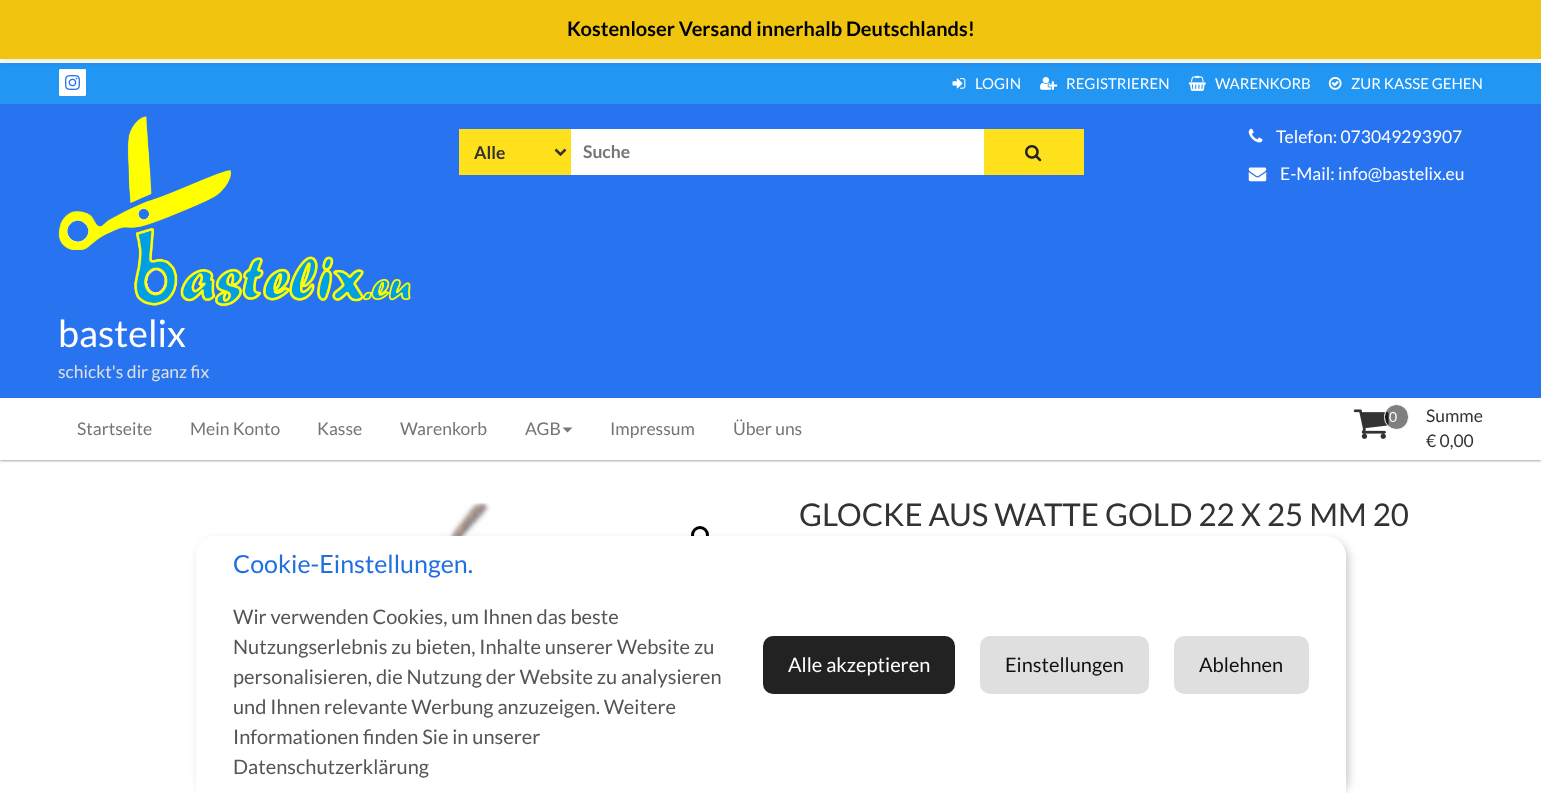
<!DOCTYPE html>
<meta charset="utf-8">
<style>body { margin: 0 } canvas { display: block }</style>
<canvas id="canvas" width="1541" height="793"></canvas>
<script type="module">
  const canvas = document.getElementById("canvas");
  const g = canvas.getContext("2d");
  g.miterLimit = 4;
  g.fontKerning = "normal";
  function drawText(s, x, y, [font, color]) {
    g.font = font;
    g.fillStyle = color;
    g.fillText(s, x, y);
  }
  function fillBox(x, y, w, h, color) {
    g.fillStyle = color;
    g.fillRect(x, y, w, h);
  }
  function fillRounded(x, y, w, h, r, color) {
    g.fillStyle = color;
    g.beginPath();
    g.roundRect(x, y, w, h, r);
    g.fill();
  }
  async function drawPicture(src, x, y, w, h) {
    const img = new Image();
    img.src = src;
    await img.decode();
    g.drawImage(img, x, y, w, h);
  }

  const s1 = ["bold 20px Lato", "#000000"];
  const s2 = ["15px Lato", "#FFFFFF"];
  const s3 = ["bold 17.5px Lato", "#333333"];
  const s4 = ["bold 17.5px Lato", "#757575"];
  const s5 = ["17.5px Lato", "#FFFFFF"];
  const s6 = ["37.5px Lato", "#FFFFFF"];
  const s7 = ["17.5px Lato", "#E0E0E0"];
  const s8 = ["17.5px Lato", "#757575"];
  const s9 = ["14px Lato", "#FFFFFF"];
  const s10 = ["17.5px Lato", "#333333"];
  const s11 = ["31.25px Lato", "#333333"];
  const s12 = ["25px Lato", "#226FE2"];
  const s13 = ["20px Lato", "#555555"];
  const s14 = ["20px Lato", "#FFFFFF"];
  const s15 = ["20px Lato", "#111111"];

  fillBox(0, 0, 1541, 793, "#FFFFFF");
  fillBox(0, 63, 1541, 41, "#2196F3");
  g.fillStyle = "#FFFFFF";
  g.beginPath();
  g.roundRect(59.5, 69.5, 26, 26, 0.5);
  g.fill();
  g.strokeStyle = "#FFFFFF";
  g.stroke();
  g.fillStyle = "rgba(0, 0, 0, 0.1)";
  g.filter = "blur(3px)";
  g.beginPath();
  g.rect(0, 3, 1541, 58);
  g.fill();
  g.filter = "none";
  fillBox(0, 0, 1541, 59, "#F1C40F");
  drawText("Kostenloser Versand innerhalb Deutschlands!", 567, 36, s1);
  await drawPicture("pic1.png", 65, 75, 15, 15);
  await drawPicture("pic2.png", 952, 78, 14, 11);
  drawText("LOGIN", 975, 89, s2);
  await drawPicture("pic3.png", 1040, 77, 18, 13);
  drawText("REGISTRIEREN", 1066, 89, s2);
  await drawPicture("pic4.png", 1188, 75, 18, 16);
  drawText("WARENKORB", 1215, 89, s2);
  await drawPicture("pic5.png", 1328, 77, 14, 13);
  drawText("ZUR KASSE GEHEN", 1351, 89, s2);
  fillBox(0, 104, 1541, 294, "#2874F0");
  fillRounded(459, 129, 625, 46, 1, "#FFFFFF");
  fillRounded(459, 129, 112, 46, 1, "#FFE11B");
  g.beginPath();
  g.moveTo(555.5, 149.5);
  g.lineTo(560.5, 154.5);
  g.lineTo(565.5, 149.5);
  g.strokeStyle = "#333333";
  g.lineWidth = 2.5;
  g.stroke();
  drawText("Alle", 474, 159, s3);
  drawText("Suche", 583, 158, s4);
  g.fillStyle = "#FFE11B";
  g.beginPath();
  g.roundRect(984, 129, 100, 46, [0, 1, 1, 0]);
  g.fill();
  await drawPicture("pic6.png", 1025, 145, 17, 17);
  await drawPicture("pic7.png", 1248, 128, 15, 15);
  drawText("Telefon: 073049293907", 1276, 143, s5);
  await drawPicture("pic8.png", 1248, 167, 19, 15);
  drawText("E-Mail: info@bastelix.eu", 1280, 180, s5);
  await drawPicture("pic9.png", 58, 116, 353, 191);
  drawText("bastelix", 58, 347, s6);
  drawText("schickt's dir ganz fix", 58, 378, s7);
  g.save();
  g.beginPath();
  g.rect(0, 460, 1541, 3);
  g.clip();
  g.fillStyle = "rgba(0, 0, 0, 0.35)";
  g.filter = "blur(1px)";
  g.beginPath();
  g.rect(0, 399, 1541, 62);
  g.fill();
  g.filter = "none";
  g.restore();
  drawText("Startseite", 77, 435, s8);
  drawText("Mein Konto", 190, 435, s8);
  drawText("Kasse", 317, 435, s8);
  drawText("Warenkorb", 400, 435, s8);
  drawText("AGB", 525, 435, s8);
  g.fillStyle = "#777777";
  g.beginPath();
  g.moveTo(562.5, 427.5);
  g.lineTo(572.5, 427.5);
  g.lineTo(567.5, 432.5);
  g.closePath();
  g.fill();
  drawText("Impressum", 610, 435, s8);
  drawText("Über uns", 733, 435, s8);
  await drawPicture("pic10.png", 1353, 409, 36, 30);
  g.fillStyle = "rgba(0, 0, 0, 0.5)";
  g.beginPath();
  g.roundRect(1384.5, 404.5, 24, 25, 12);
  g.fill();
  g.strokeStyle = "#FFFFFF";
  g.lineWidth = 1;
  g.stroke();
  drawText("0", 1389, 422, s9);
  drawText("Summe", 1426, 422, s10);
  drawText("€ 0,00", 1426, 447, s10);
  await drawPicture("pic11.png", 379, 502, 111, 34);
  g.beginPath();
  g.arc(700, 535, 7.5, 0, Math.PI * 2);
  g.strokeStyle = "#000000";
  g.lineWidth = 3;
  g.stroke();
  drawText("GLOCKE AUS WATTE GOLD 22 X 25 MM 20", 799, 526, s11);
  g.fillStyle = "rgba(0, 0, 0, 0.2)";
  g.filter = "blur(4.5px)";
  g.beginPath();
  g.roundRect(199, 540, 1150, 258, 20);
  g.fill();
  g.filter = "none";
  g.fillStyle = "#FFFFFF";
  g.beginPath();
  g.moveTo(216, 536);
  g.lineTo(1326, 536);
  g.bezierCurveTo(1337, 536, 1346, 545, 1346, 556);
  g.lineTo(1346, 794);
  g.lineTo(196, 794);
  g.lineTo(196, 556);
  g.bezierCurveTo(196, 545, 205, 536, 216, 536);
  g.closePath();
  g.fill();
  drawText("Cookie-Einstellungen.", 233, 573, s12);
  drawText("Wir verwenden Cookies, um Ihnen das beste", 233, 624, s13);
  drawText("Nutzungserlebnis zu bieten, Inhalte unserer Website zu", 233, 654, s13);
  drawText("personalisieren, die Nutzung der Website zu analysieren", 233, 684, s13);
  drawText("und Ihnen relevante Werbung anzuzeigen. Weitere", 233, 714, s13);
  drawText("Informationen finden Sie in unserer", 233, 744, s13);
  drawText("Datenschutzerklärung", 233, 774, s13);
  fillRounded(763, 636, 192, 58, 10, "#222222");
  drawText("Alle akzeptieren", 788, 672, s14);
  fillRounded(980, 636, 169, 58, 10, "#DFDFDF");
  drawText("Einstellungen", 1005, 672, s15);
  fillRounded(1174, 636, 135, 58, 10, "#DFDFDF");
  drawText("Ablehnen", 1199, 672, s15);
</script>
